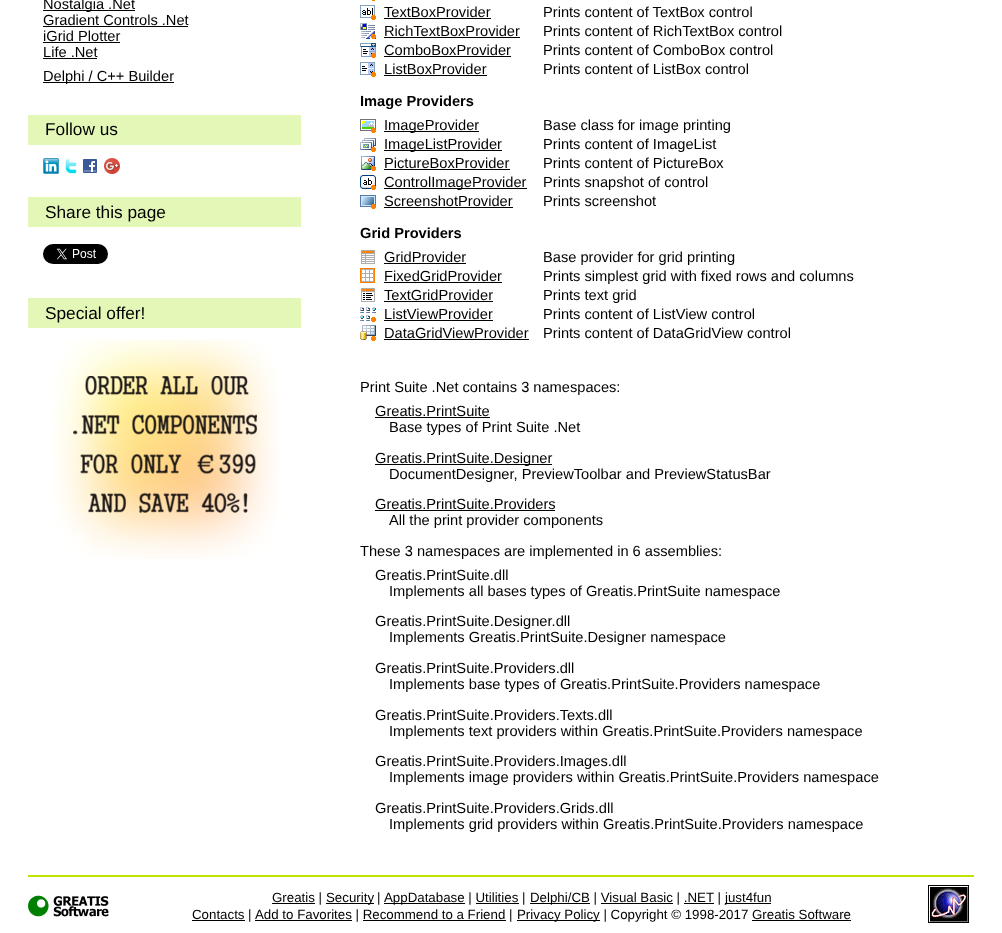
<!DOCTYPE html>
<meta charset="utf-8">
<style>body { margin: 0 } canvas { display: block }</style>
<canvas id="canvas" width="1002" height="933"></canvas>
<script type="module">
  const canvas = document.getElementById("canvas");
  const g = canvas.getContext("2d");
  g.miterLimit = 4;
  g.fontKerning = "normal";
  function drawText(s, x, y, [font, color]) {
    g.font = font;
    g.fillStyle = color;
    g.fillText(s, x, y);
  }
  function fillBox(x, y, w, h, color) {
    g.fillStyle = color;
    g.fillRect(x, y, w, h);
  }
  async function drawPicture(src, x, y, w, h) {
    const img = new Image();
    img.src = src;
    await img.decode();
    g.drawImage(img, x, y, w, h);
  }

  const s1 = ["14.65px Liberation Sans", "#000000"];
  const s2 = ["17.25px Liberation Sans", "#000000"];
  const s3 = ["bold 14.65px Liberation Sans", "#000000"];
  const s4 = ["13.3px Liberation Sans", "#000000"];

  fillBox(0, 0, 1002, 933, "#FFFFFF");
  fillBox(43, 10, 92, 1, "#000000");
  drawText("Nostalgia .Net", 43, 9, s1);
  drawText("Gradient Controls .Net", 43, 25, s1);
  fillBox(43, 26, 145, 1, "#000000");
  drawText("iGrid Plotter", 43, 41, s1);
  fillBox(43, 42, 77, 1, "#000000");
  drawText("Life .Net", 43, 57, s1);
  fillBox(43, 58, 54, 1, "#000000");
  fillBox(43, 82, 131, 1, "#000000");
  drawText("Delphi / C++ Builder", 43, 81, s1);
  fillBox(28, 115, 273, 30, "#E3F7B7");
  drawText("Follow us", 45, 135, s2);
  await drawPicture("pic1.png", 43, 158, 16, 16);
  await drawPicture("pic2.png", 65, 158, 12, 16);
  await drawPicture("pic3.png", 83, 159, 14, 14);
  await drawPicture("pic4.png", 104, 158, 16, 16);
  fillBox(28, 197, 273, 30, "#E3F7B7");
  drawText("Share this page", 45, 218, s2);
  await drawPicture("pic5.png", 43, 244, 65, 20);
  fillBox(28, 298, 273, 30, "#E3F7B7");
  drawText("Special offer!", 45, 319, s2);
  await drawPicture("pic6.png", 52, 340, 228, 219);
  fillBox(372, 0, 3, 1, "#FF8000");
  await drawPicture("pic7.png", 360, 5, 16, 15);
  drawText("TextBoxProvider", 384, 17, s1);
  fillBox(384, 18, 107, 1, "#000000");
  drawText("Prints content of TextBox control", 543, 17, s1);
  await drawPicture("pic8.png", 360, 23, 16, 16);
  drawText("RichTextBoxProvider", 384, 36, s1);
  fillBox(384, 37, 136, 1, "#000000");
  drawText("Prints content of RichTextBox control", 543, 36, s1);
  await drawPicture("pic9.png", 360, 43, 16, 15);
  drawText("ComboBoxProvider", 384, 55, s1);
  fillBox(384, 56, 127, 1, "#000000");
  drawText("Prints content of ComboBox control", 543, 55, s1);
  await drawPicture("pic10.png", 360, 62, 16, 15);
  drawText("ListBoxProvider", 384, 74, s1);
  fillBox(384, 75, 103, 1, "#000000");
  drawText("Prints content of ListBox control", 543, 74, s1);
  drawText("Image Providers", 360, 106, s3);
  await drawPicture("pic11.png", 360, 119, 16, 14);
  fillBox(384, 131, 95, 1, "#000000");
  drawText("ImageProvider", 384, 130, s1);
  drawText("Base class for image printing", 543, 130, s1);
  await drawPicture("pic12.png", 360, 138, 16, 14);
  fillBox(384, 150, 118, 1, "#000000");
  drawText("ImageListProvider", 384, 149, s1);
  drawText("Prints content of ImageList", 543, 149, s1);
  await drawPicture("pic13.png", 361, 156, 15, 15);
  drawText("PictureBoxProvider", 384, 168, s1);
  fillBox(384, 169, 126, 1, "#000000");
  drawText("Prints content of PictureBox", 543, 168, s1);
  await drawPicture("pic14.png", 360, 175, 16, 15);
  fillBox(384, 188, 143, 1, "#000000");
  drawText("ControlImageProvider", 384, 187, s1);
  drawText("Prints snapshot of control", 543, 187, s1);
  await drawPicture("pic15.png", 360, 195, 16, 14);
  drawText("ScreenshotProvider", 384, 206, s1);
  fillBox(384, 207, 129, 1, "#000000");
  drawText("Prints screenshot", 543, 206, s1);
  drawText("Grid Providers", 360, 238, s3);
  await drawPicture("pic16.png", 361, 250, 14, 14);
  drawText("GridProvider", 384, 262, s1);
  fillBox(384, 263, 82, 1, "#000000");
  drawText("Base provider for grid printing", 543, 262, s1);
  await drawPicture("pic17.png", 360, 268, 15, 15);
  drawText("FixedGridProvider", 384, 281, s1);
  fillBox(384, 282, 118, 1, "#000000");
  drawText("Prints simplest grid with fixed rows and columns", 543, 281, s1);
  await drawPicture("pic18.png", 361, 288, 14, 14);
  drawText("TextGridProvider", 384, 300, s1);
  fillBox(384, 301, 109, 1, "#000000");
  drawText("Prints text grid", 543, 300, s1);
  await drawPicture("pic19.png", 360, 307, 16, 15);
  drawText("ListViewProvider", 384, 319, s1);
  fillBox(384, 320, 109, 1, "#000000");
  drawText("Prints content of ListView control", 543, 319, s1);
  await drawPicture("pic20.png", 360, 325, 16, 16);
  drawText("DataGridViewProvider", 384, 338, s1);
  fillBox(384, 339, 145, 1, "#000000");
  drawText("Prints content of DataGridView control", 543, 338, s1);
  drawText("Print Suite .Net contains 3 namespaces:", 360, 392, s1);
  drawText("Greatis.PrintSuite", 375, 416, s1);
  fillBox(375, 417, 115, 1, "#000000");
  drawText("Base types of Print Suite .Net", 389, 432, s1);
  fillBox(375, 464, 177, 1, "#000000");
  drawText("Greatis.PrintSuite.Designer", 375, 463, s1);
  drawText("DocumentDesigner, PreviewToolbar and PreviewStatusBar", 389, 479, s1);
  drawText("Greatis.PrintSuite.Providers", 375, 509, s1);
  fillBox(375, 510, 180, 1, "#000000");
  drawText("All the print provider components", 389, 525, s1);
  drawText("These 3 namespaces are implemented in 6 assemblies:", 360, 556, s1);
  drawText("Greatis.PrintSuite.dll", 375, 580, s1);
  drawText("Implements all bases types of Greatis.PrintSuite namespace", 389, 596, s1);
  drawText("Greatis.PrintSuite.Designer.dll", 375, 626, s1);
  drawText("Implements Greatis.PrintSuite.Designer namespace", 389, 642, s1);
  drawText("Greatis.PrintSuite.Providers.dll", 375, 673, s1);
  drawText("Implements base types of Greatis.PrintSuite.Providers namespace", 389, 689, s1);
  drawText("Greatis.PrintSuite.Providers.Texts.dll", 375, 720, s1);
  drawText("Implements text providers within Greatis.PrintSuite.Providers namespace", 389, 736, s1);
  drawText("Greatis.PrintSuite.Providers.Images.dll", 375, 766, s1);
  drawText("Implements image providers within Greatis.PrintSuite.Providers namespace", 389, 782, s1);
  drawText("Greatis.PrintSuite.Providers.Grids.dll", 375, 813, s1);
  drawText("Implements grid providers within Greatis.PrintSuite.Providers namespace", 389, 829, s1);
  fillBox(28, 875, 946, 2, "#C0E600");
  await drawPicture("pic21.png", 28, 895, 81, 22);
  fillBox(272, 903, 43, 1, "#000000");
  drawText("Greatis |", 272, 902, s4);
  fillBox(326, 903, 48, 1, "#000000");
  drawText("Security", 326, 902, s4);
  drawText("|", 377, 902, s4);
  fillBox(384, 903, 81, 1, "#000000");
  drawText("AppDatabase | Utilities |", 384, 902, s4);
  fillBox(530, 903, 60, 1, "#000000");
  drawText("Delphi/CB | Visual Basic | .NET |", 530, 902, s4);
  fillBox(725, 903, 46, 1, "#000000");
  drawText("just4fun", 725, 902, s4);
  fillBox(476, 903, 43, 1, "#000000");
  fillBox(601, 903, 72, 1, "#000000");
  fillBox(684, 903, 30, 1, "#000000");
  drawText("Contacts", 192, 919, s4);
  fillBox(192, 920, 53, 1, "#000000");
  drawText("|", 248, 919, s4);
  fillBox(255, 920, 97, 1, "#000000");
  drawText("Add to Favorites | Recommend to a Friend |", 255, 919, s4);
  fillBox(517, 920, 83, 1, "#000000");
  drawText("Privacy Policy | Copyright © 1998-2017 Greatis Software", 517, 919, s4);
  fillBox(363, 920, 143, 1, "#000000");
  fillBox(752, 920, 99, 1, "#000000");
  await drawPicture("pic22.png", 928, 885, 41, 38);
</script>
